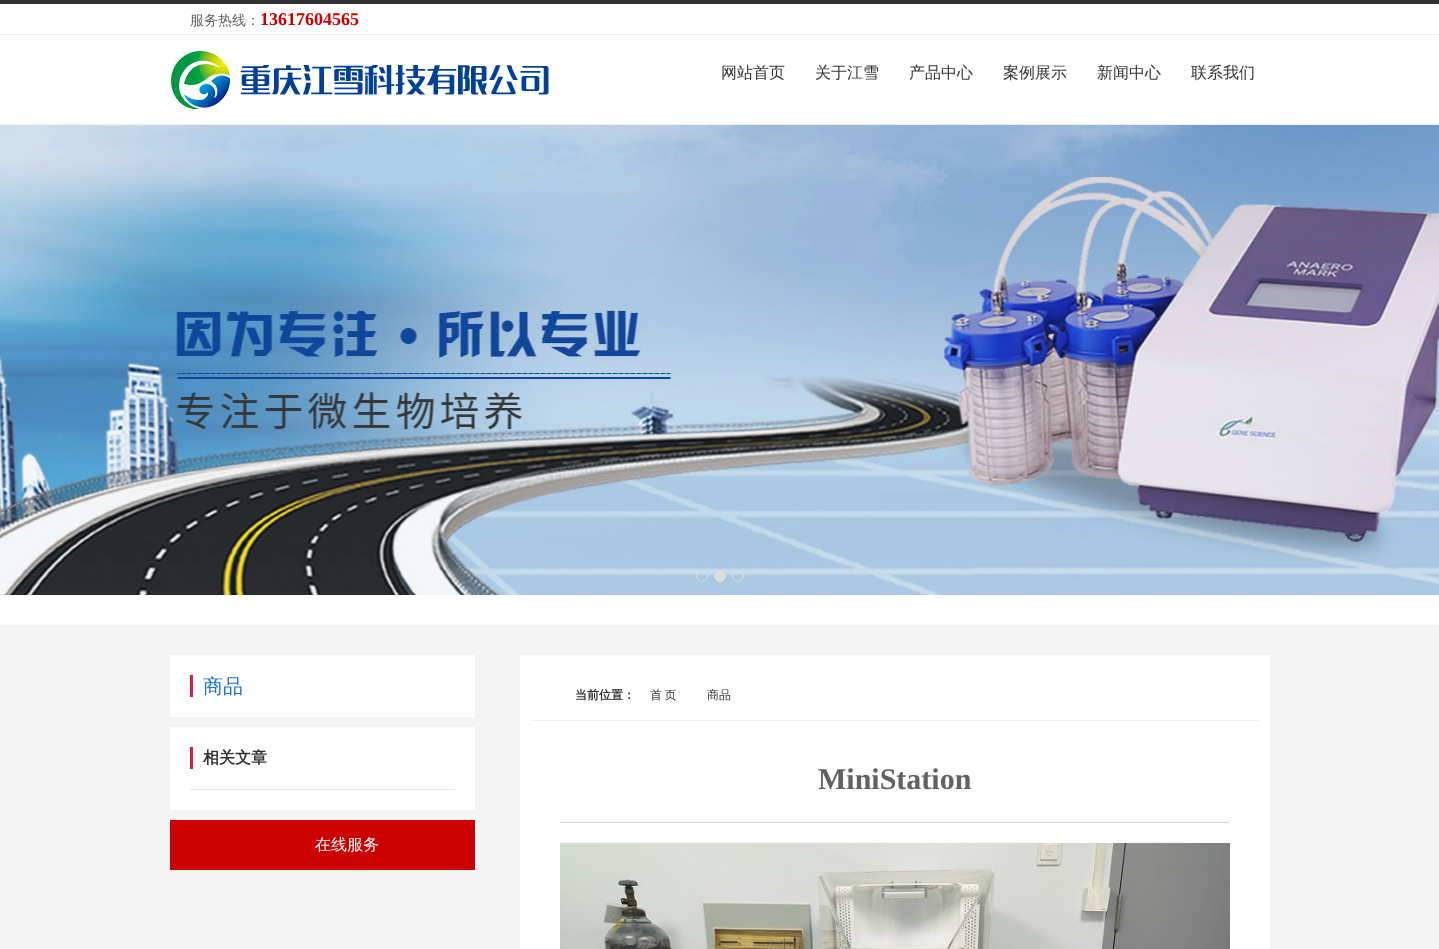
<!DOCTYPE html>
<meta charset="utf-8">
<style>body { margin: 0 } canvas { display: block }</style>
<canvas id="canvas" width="1439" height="949"></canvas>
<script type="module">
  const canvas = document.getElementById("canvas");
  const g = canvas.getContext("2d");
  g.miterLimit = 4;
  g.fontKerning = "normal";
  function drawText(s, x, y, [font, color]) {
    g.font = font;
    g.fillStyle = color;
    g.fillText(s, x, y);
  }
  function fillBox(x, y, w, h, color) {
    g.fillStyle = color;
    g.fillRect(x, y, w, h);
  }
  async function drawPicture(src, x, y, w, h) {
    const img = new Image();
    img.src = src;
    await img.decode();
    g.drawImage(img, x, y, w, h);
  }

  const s1 = ["500 14px WenQuanYi Zen Hei", "#626262"];
  const s2 = ["bold 18px Liberation Serif", "#CC0000"];
  const s3 = ["500 16px WenQuanYi Zen Hei", "#333333"];
  const s4 = ["500 20px WenQuanYi Zen Hei", "#1F6FC8"];
  const s5 = ["bold 16px WenQuanYi Zen Hei", "#333333"];
  const s6 = ["500 16px WenQuanYi Zen Hei", "#FFFFFF"];
  const s7 = ["bold 12px WenQuanYi Zen Hei", "#333333"];
  const s8 = ["500 12px WenQuanYi Zen Hei", "#333333"];
  const s9 = ["bold 30px Liberation Serif", "#626262"];

  fillBox(0, 0, 1439, 949, "#FFFFFF");
  fillBox(0, 0, 1439, 4, "#333333");
  fillBox(0, 124, 1439, 1, "#EFEFEF");
  fillBox(0, 34, 1439, 1, "#EEEEEE");
  drawText("服务热线：", 190, 25, s1);
  drawText("13617604565", 260, 25, s2);
  await drawPicture("pic1.png", 171, 51, 378, 58);
  drawText("网站首页", 721, 78, s3);
  drawText("关于江雪", 815, 78, s3);
  drawText("产品中心", 909, 78, s3);
  drawText("案例展示", 1003, 78, s3);
  drawText("新闻中心", 1097, 78, s3);
  drawText("联系我们", 1191, 78, s3);
  await drawPicture("pic2.png", 0, 125, 1439, 470);
  g.beginPath();
  g.arc(702, 576, 5.5, 0, Math.PI * 2);
  g.strokeStyle = "#DDDDDD";
  g.stroke();
  g.fillStyle = "#DDDDDD";
  g.beginPath();
  g.arc(720, 576, 5.5, 0, Math.PI * 2);
  g.fill();
  g.stroke();
  g.beginPath();
  g.arc(738, 576, 5.5, 0, Math.PI * 2);
  g.stroke();
  fillBox(0, 625, 1439, 324, "#F4F4F4");
  fillBox(170, 655, 305, 62, "#FFFFFF");
  drawText("商品", 203, 693, s4);
  fillBox(190, 675, 3, 22, "#D6203F");
  fillBox(170, 727, 305, 83, "#FFFFFF");
  fillBox(190, 789, 265, 1, "#E5E5E5");
  fillBox(190, 747, 3, 22, "#D6203F");
  drawText("相关文章", 203, 763, s5);
  fillBox(170, 820, 305, 50, "#CC0000");
  drawText("在线服务", 315, 850, s6);
  fillBox(520, 655, 750, 294, "#FFFFFF");
  fillBox(530, 720, 730, 1, "#F0F0F0");
  drawText("当前位置：", 575, 699, s7);
  g.wordSpacing = "-1px";
  drawText("首 页", 650, 699, s8);
  g.wordSpacing = "0px";
  drawText("商品", 707, 699, s8);
  drawText("MiniStation", 818, 789, s9);
  fillBox(560, 822, 670, 1, "#D6D6D6");
  await drawPicture("pic3.png", 560, 843, 670, 106);
</script>
